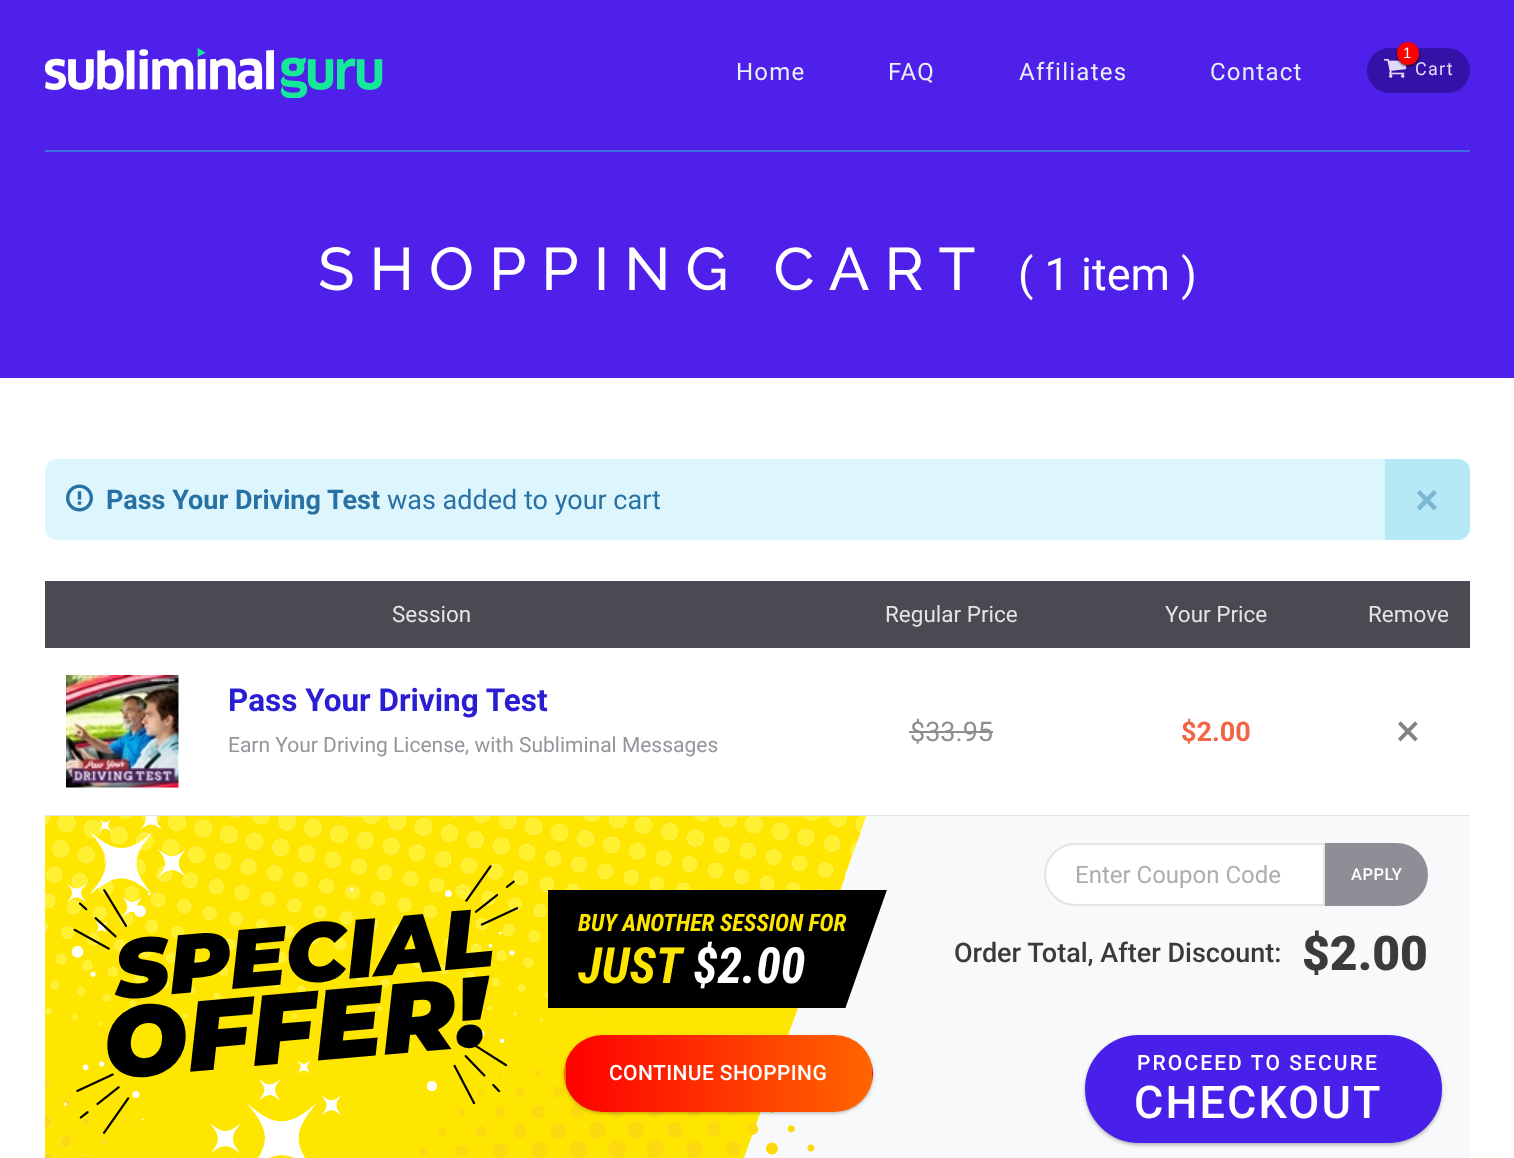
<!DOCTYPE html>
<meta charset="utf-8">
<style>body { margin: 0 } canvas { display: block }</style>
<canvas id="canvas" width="1514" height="1158"></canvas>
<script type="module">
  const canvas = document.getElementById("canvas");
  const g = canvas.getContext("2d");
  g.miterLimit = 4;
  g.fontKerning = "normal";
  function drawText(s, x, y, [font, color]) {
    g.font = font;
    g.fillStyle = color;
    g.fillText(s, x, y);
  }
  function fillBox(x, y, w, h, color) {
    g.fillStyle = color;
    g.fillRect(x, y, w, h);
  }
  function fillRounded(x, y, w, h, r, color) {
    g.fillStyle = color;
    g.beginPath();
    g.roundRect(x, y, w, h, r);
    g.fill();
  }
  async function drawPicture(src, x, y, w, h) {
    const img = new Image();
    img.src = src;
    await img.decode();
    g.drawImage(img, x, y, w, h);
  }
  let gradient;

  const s1 = ["24px Roboto", "#E7EFF6"];
  const s2 = ["15px Liberation Sans", "#FFFFFF"];
  const s3 = ["18px Roboto", "#E2DAFB"];
  const s4 = ["500 60px Raleway", "#FFFFFF"];
  const s5 = ["45px Roboto", "#FFFFFF"];
  const s6 = ["bold 27px Roboto", "#2771A5"];
  const s7 = ["27px Roboto", "#2771A5"];
  const s8 = ["500 45px Roboto", "#7BB8D1"];
  const s9 = ["22.5px Roboto", "#E3E4E4"];
  const s10 = ["bold 31.5px Roboto", "#2A1ED2"];
  const s11 = ["21px Roboto", "#92969B"];
  const s12 = ["27px Roboto", "#8E8E8E"];
  const s13 = ["bold 27px Roboto", "#F06543"];
  const s14 = ["45px Roboto", "#7E8489"];
  const s15 = ["italic bold 23.9px Roboto Condensed", "#FFE600"];
  const s16 = ["italic bold 50px Roboto Condensed", "#FFE600"];
  const s17 = ["italic bold 50px Roboto Condensed", "#FFFFFF"];
  const s18 = ["500 21px Roboto", "#FFFFFF"];
  const s19 = ["24px Roboto", "#ADADAE"];
  const s20 = ["500 16.5px Roboto", "#FFFFFF"];
  const s21 = ["500 27px Roboto", "#3D3A3A"];
  const s22 = ["900 48px Roboto", "#3D3A3A"];
  const s23 = ["500 45px Roboto", "#FFFFFF"];

  fillBox(0, 0, 1514, 1158, "#FFFFFF");
  fillBox(0, 0, 1514, 378, "#4F20E9");
  fillBox(45, 150, 1425, 2, "#406DE0");
  await drawPicture("pic1.png", 45, 48, 338, 50);
  g.letterSpacing = "1.25px";
  drawText("Home", 736, 80, s1);
  drawText("FAQ", 888, 80, s1);
  drawText("Affiliates", 1019, 80, s1);
  drawText("Contact", 1210, 80, s1);
  fillRounded(1367, 48, 103, 45, 22.5, "#3411A7");
  await drawPicture("pic2.png", 1383, 58, 24, 20);
  g.fillStyle = "rgba(0, 0, 0, 0.85)";
  g.filter = "blur(1px)";
  g.beginPath();
  g.roundRect(1397, 44, 22, 22, 11);
  g.fill();
  g.filter = "none";
  fillRounded(1397, 42, 22, 23, 11, "#FF0000");
  g.letterSpacing = "0px";
  drawText("1", 1403, 58, s2);
  g.letterSpacing = "1.25px";
  drawText("Cart", 1415, 75, s3);
  g.letterSpacing = "15px";
  drawText("SHOPPING CART", 318, 290, s4);
  g.letterSpacing = "0px";
  drawText("( 1 item )", 1018, 290, s5);
  fillRounded(45, 459, 1425, 81, 12, "#DDF6FD");
  await drawPicture("pic3.png", 66, 484, 27, 28);
  drawText("Pass Your Driving Test", 106, 509, s6);
  drawText("was added to your cart", 387, 509, s7);
  g.fillStyle = "#B6E9F6";
  g.beginPath();
  g.roundRect(1385, 459, 85, 81, [0, 12, 12, 0]);
  g.fill();
  g.letterSpacing = "1px";
  drawText("×", 1415, 515, s8);
  fillBox(45, 815, 1425, 1, "#E3E4E4");
  fillBox(45, 581, 1425, 67, "#4A4A52");
  g.letterSpacing = "0px";
  drawText("Session", 392, 622, s9);
  drawText("Regular Price", 885, 622, s9);
  drawText("Your Price", 1165, 622, s9);
  drawText("Remove", 1368, 622, s9);
  await drawPicture("pic4.png", 66, 675, 113, 113);
  drawText("Pass Your Driving Test", 228, 711, s10);
  drawText("Earn Your Driving License, with Subliminal Messages", 228, 752, s11);
  drawText("$33.95", 910, 741, s12);
  fillBox(909, 731, 84, 2, "#8E8E8E");
  drawText("$2.00", 1181, 741, s13);
  g.letterSpacing = "1px";
  drawText("×", 1396, 746, s14);
  fillBox(45, 816, 1425, 342, "#F8F9FA");
  await drawPicture("pic5.png", 45, 816, 822, 342);
  await drawPicture("pic6.png", 64, 865, 455, 269);
  g.letterSpacing = "0px";
  g.font = "italic 100 83px Montserrat";
  g.fillStyle = "#000000";
  g.save();
  g.translate(117, 999);
  g.rotate(-5 * Math.PI / 180);
  g.fillText("SPECIAL", 0, 0);
  g.restore();
  g.font = "italic 100 99.5px Montserrat";
  g.save();
  g.translate(106, 1079);
  g.rotate(-5 * Math.PI / 180);
  g.fillText("OFFER!", 0, 0);
  g.restore();
  g.save();
  g.beginPath();
  g.rect(548, 890, 342, 118);
  g.clip();
  g.beginPath();
  g.moveTo(844, 1012);
  g.lineTo(548, 1012);
  g.lineTo(548, 884);
  g.lineTo(889, 884);
  g.closePath();
  g.fill();
  g.restore();
  drawText("BUY ANOTHER SESSION FOR", 578, 931, s15);
  drawText("JUST", 578, 983, s16);
  drawText("$2.00", 693, 983, s17);
  g.fillStyle = "rgba(0, 0, 0, 0.2)";
  g.filter = "blur(2px)";
  g.beginPath();
  g.roundRect(564, 1037, 309, 76, 38);
  g.fill();
  g.filter = "none";
  g.fillStyle = "rgba(0, 0, 0, 0.1)";
  g.filter = "blur(1px)";
  g.beginPath();
  g.roundRect(564, 1037, 309, 76, 38);
  g.fill();
  g.filter = "none";
  g.save();
  g.beginPath();
  g.roundRect(564, 1035, 309, 77, 38.5);
  g.clip();
  gradient = g.createLinearGradient(260, 1073, 566, 1073);
  gradient.addColorStop(0, "#FF0000");
  gradient.addColorStop(1, "#FF6600");
  g.fillStyle = gradient;
  g.fillRect(564, 1061, 2, 25);
  gradient = g.createLinearGradient(566, 1073, 872, 1073);
  gradient.addColorStop(0, "#FF0000");
  gradient.addColorStop(1, "#FF6600");
  g.fillStyle = gradient;
  g.fillRect(566, 1035, 306, 77);
  gradient = g.createLinearGradient(872, 1073, 1178, 1073);
  gradient.addColorStop(0, "#FF0000");
  gradient.addColorStop(1, "#FF6600");
  g.fillStyle = gradient;
  g.fillRect(872, 1065, 1, 17);
  g.restore();
  g.letterSpacing = "0.4px";
  drawText("CONTINUE SHOPPING", 609, 1080, s18);
  g.beginPath();
  g.roundRect(1045, 844, 279, 61, [30.5, 0, 0, 30.5]);
  g.fill();
  g.strokeStyle = "#E3E4E4";
  g.lineWidth = 2;
  g.stroke();
  g.letterSpacing = "0px";
  drawText("Enter Coupon Code", 1075, 883, s19);
  g.fillStyle = "#8E8E97";
  g.beginPath();
  g.roundRect(1326, 844, 101, 61, [0, 30.5, 30.5, 0]);
  g.fill();
  g.strokeStyle = "#8E8E97";
  g.stroke();
  g.letterSpacing = "0.5px";
  drawText("APPLY", 1351, 880, s20);
  g.letterSpacing = "0px";
  drawText("Order Total, After Discount:", 954, 962, s21);
  drawText("$2.00", 1302, 970, s22);
  g.fillStyle = "rgba(0, 0, 0, 0.2)";
  g.filter = "blur(2px)";
  g.beginPath();
  g.roundRect(1085, 1037, 357, 108, 54);
  g.fill();
  g.filter = "none";
  g.fillStyle = "rgba(0, 0, 0, 0.1)";
  g.filter = "blur(1px)";
  g.beginPath();
  g.roundRect(1085, 1037, 357, 108, 54);
  g.fill();
  g.filter = "none";
  g.fillStyle = "#4820E9";
  g.beginPath();
  g.roundRect(1086, 1036, 355, 106, 53);
  g.fill();
  g.strokeStyle = "#4820E9";
  g.stroke();
  g.letterSpacing = "2.1px";
  drawText("PROCEED TO SECURE", 1137, 1070, s18);
  drawText("CHECKOUT", 1134, 1118, s23);
</script>
